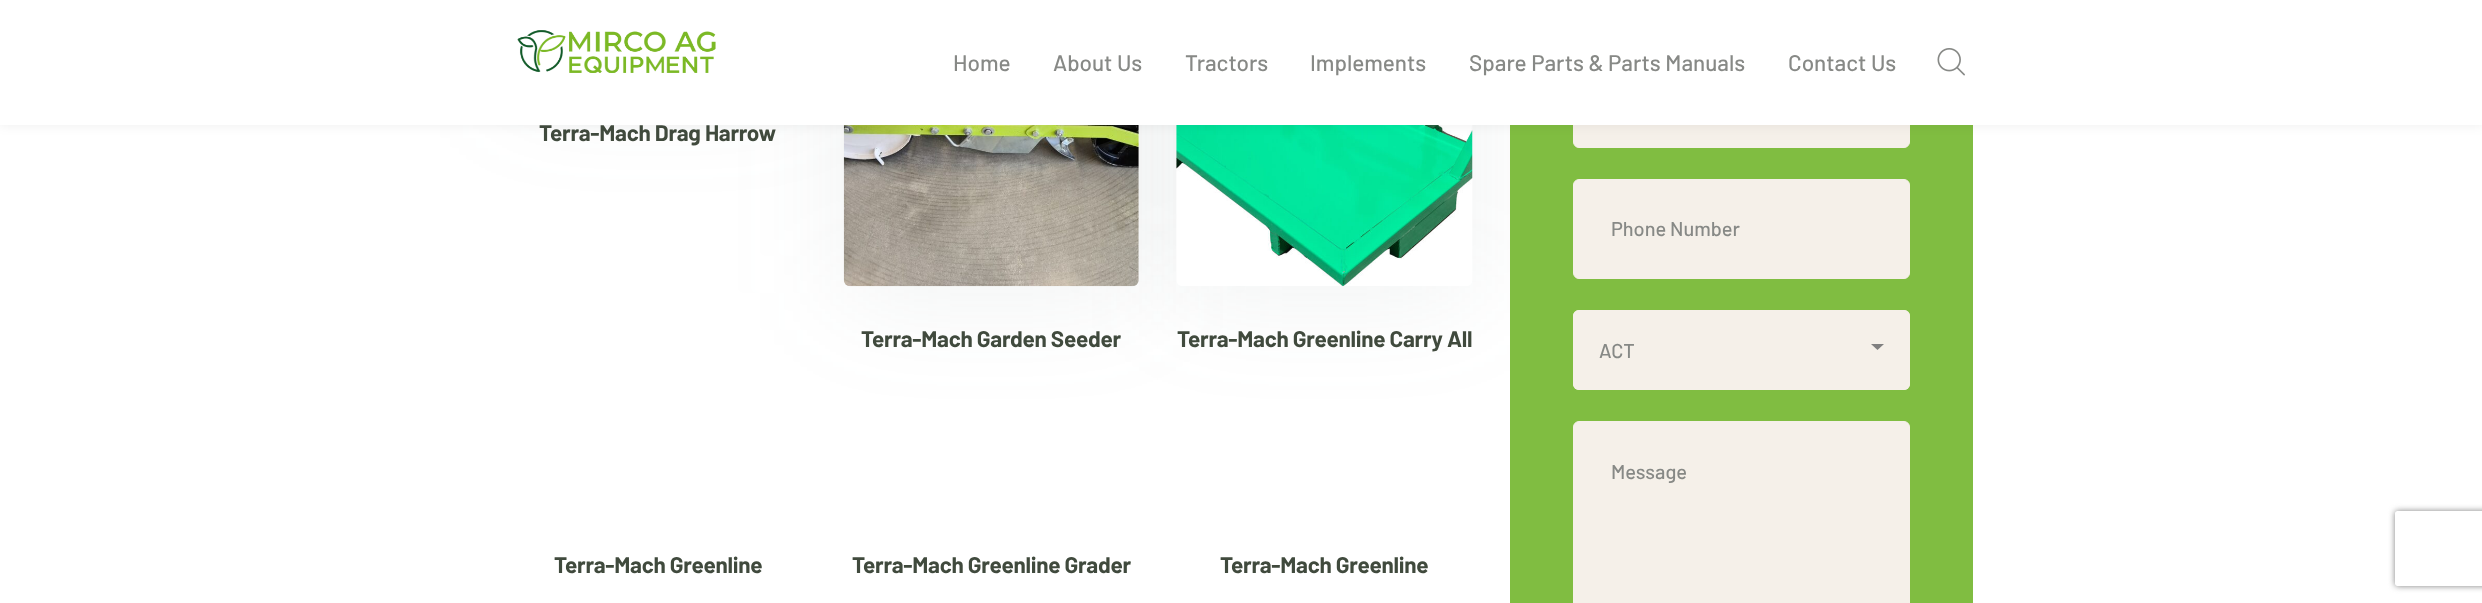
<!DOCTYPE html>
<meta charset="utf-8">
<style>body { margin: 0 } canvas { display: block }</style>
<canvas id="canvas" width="2482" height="603"></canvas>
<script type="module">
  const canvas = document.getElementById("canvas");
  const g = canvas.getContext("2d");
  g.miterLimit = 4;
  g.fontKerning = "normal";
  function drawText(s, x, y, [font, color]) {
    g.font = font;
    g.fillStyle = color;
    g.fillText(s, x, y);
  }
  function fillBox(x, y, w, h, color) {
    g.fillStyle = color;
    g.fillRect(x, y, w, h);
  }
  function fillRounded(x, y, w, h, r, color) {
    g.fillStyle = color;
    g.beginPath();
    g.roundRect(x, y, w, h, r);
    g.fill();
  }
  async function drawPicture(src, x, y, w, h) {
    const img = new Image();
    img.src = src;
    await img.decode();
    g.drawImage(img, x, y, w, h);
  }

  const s1 = ["500 22.5px Barlow", "#878986"];
  const s2 = ["bold 22.5px Barlow", "#404A3D"];
  const s3 = ["500 20px Barlow", "#878986"];

  fillBox(0, 0, 2482, 603, "#FFFFFF");
  g.fillStyle = "rgba(110, 123, 131, 0.1)";
  g.filter = "blur(56px)";
  g.beginPath();
  g.roundRect(510, -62, 296, 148, 6);
  g.fill();
  g.filter = "none";
  g.filter = "blur(56px)";
  g.beginPath();
  g.roundRect(844, -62, 295, 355, 6);
  g.fill();
  g.filter = "none";
  await drawPicture("pic3.png", 843, 125, 296, 162);
  g.filter = "blur(56px)";
  g.beginPath();
  g.roundRect(1176, -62, 297, 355, 6);
  g.fill();
  g.filter = "none";
  await drawPicture("pic4.png", 1176, 125, 297, 162);
  fillBox(1510, 125, 463, 478, "#80BD41");
  g.fillStyle = "#F5F0E9";
  g.beginPath();
  g.roundRect(1573.5, 48.5, 336, 99, 5.5);
  g.fill();
  g.strokeStyle = "#F5F0E9";
  g.stroke();
  g.fillStyle = "rgba(0, 0, 0, 0.07)";
  g.filter = "blur(6px)";
  g.beginPath();
  g.rect(0, 0, 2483, 125);
  g.fill();
  g.filter = "none";
  fillBox(0, 0, 2482, 125, "#FFFFFF");
  await drawPicture("pic1.png", 517, 30, 199, 43);
  drawText("Home", 953, 71, s1);
  drawText("About Us", 1053, 71, s1);
  drawText("Tractors", 1185, 71, s1);
  drawText("Implements", 1310, 71, s1);
  drawText("Spare Parts & Parts Manuals", 1469, 71, s1);
  drawText("Contact Us", 1788, 71, s1);
  await drawPicture("pic2.png", 1937, 48, 28, 28);
  g.letterSpacing = "-0.25px";
  drawText("Terra-Mach Drag Harrow", 539, 141, s2);
  drawText("Terra-Mach Garden Seeder", 861, 347, s2);
  drawText("Terra-Mach Greenline Carry All", 1177, 347, s2);
  drawText("Terra-Mach Greenline", 554, 573, s2);
  drawText("Terra-Mach Greenline Grader", 852, 573, s2);
  drawText("Terra-Mach Greenline", 1220, 573, s2);
  g.fillStyle = "#F5F0E9";
  g.beginPath();
  g.roundRect(1573.5, 179.5, 336, 99, 5.5);
  g.fill();
  g.stroke();
  g.letterSpacing = "0px";
  drawText("Phone Number", 1611, 236, s3);
  fillRounded(1573, 310, 337, 80, 6, "#F5F0E9");
  g.fillStyle = "#808080";
  g.beginPath();
  g.moveTo(1871, 344);
  g.lineTo(1884, 344);
  g.lineTo(1877.5, 350);
  g.closePath();
  g.fill();
  g.beginPath();
  g.roundRect(1573.5, 310.5, 336, 79, 5.5);
  g.stroke();
  drawText("ACT", 1599, 358, s3);
  g.fillStyle = "#F5F0E9";
  g.beginPath();
  g.roundRect(1573.5, 421.5, 336, 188, 5.5);
  g.fill();
  g.stroke();
  drawText("Message", 1611, 479, s3);
  g.save();
  g.beginPath();
  g.moveTo(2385, 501);
  g.lineTo(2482, 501);
  g.lineTo(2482, 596);
  g.lineTo(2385, 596);
  g.closePath();
  g.moveTo(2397.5, 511);
  g.lineTo(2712.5, 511);
  g.bezierCurveTo(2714, 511, 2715, 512, 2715, 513.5);
  g.lineTo(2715, 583.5);
  g.bezierCurveTo(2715, 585, 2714, 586, 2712.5, 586);
  g.lineTo(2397.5, 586);
  g.bezierCurveTo(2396, 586, 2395, 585, 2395, 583.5);
  g.lineTo(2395, 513.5);
  g.bezierCurveTo(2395, 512, 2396, 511, 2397.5, 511);
  g.closePath();
  g.clip("evenodd");
  g.fillStyle = "#808080";
  g.filter = "blur(3px)";
  g.beginPath();
  g.roundRect(2395, 511, 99, 75, 2.5);
  g.fill();
  g.filter = "none";
  g.restore();
</script>
